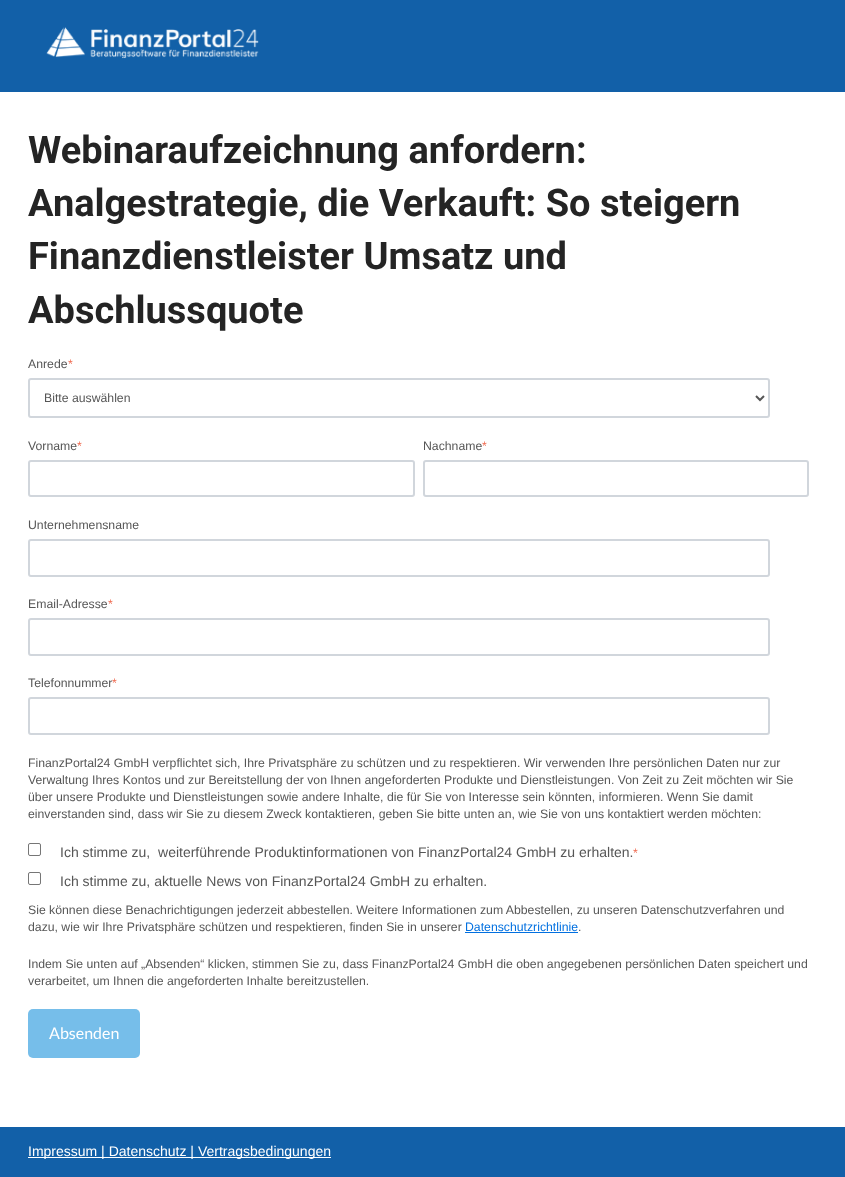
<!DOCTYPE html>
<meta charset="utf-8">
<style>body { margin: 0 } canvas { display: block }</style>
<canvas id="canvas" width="845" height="1177"></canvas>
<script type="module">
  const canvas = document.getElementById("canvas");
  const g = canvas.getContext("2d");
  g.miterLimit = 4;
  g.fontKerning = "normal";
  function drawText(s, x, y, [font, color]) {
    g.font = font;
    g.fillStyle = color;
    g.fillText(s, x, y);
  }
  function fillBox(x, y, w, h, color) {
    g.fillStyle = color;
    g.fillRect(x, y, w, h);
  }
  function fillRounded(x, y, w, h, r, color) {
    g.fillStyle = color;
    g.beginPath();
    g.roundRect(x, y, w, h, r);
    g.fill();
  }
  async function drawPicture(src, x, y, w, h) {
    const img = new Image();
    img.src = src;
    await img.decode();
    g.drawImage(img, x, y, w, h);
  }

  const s1 = ["bold 38px Roboto", "#242424"];
  const s2 = ["12.25px Liberation Sans", "#565656"];
  const s3 = ["12.25px Liberation Sans", "#EF6B51"];
  const s4 = ["14px Liberation Sans", "#565656"];
  const s5 = ["12.25px Liberation Sans", "#0270E0"];
  const s6 = ["16px Lato", "#FFFFFF"];
  const s7 = ["14px Liberation Sans", "#FFFFFF"];

  fillBox(0, 0, 845, 1177, "#FFFFFF");
  fillBox(0, 0, 845, 92, "#1260A8");
  await drawPicture("pic1.png", 46, 27, 213, 32);
  drawText("Webinaraufzeichnung anfordern:", 28, 163, s1);
  drawText("Analgestrategie, die Verkauft: So steigern", 28, 216, s1);
  drawText("Finanzdienstleister Umsatz und", 28, 269, s1);
  drawText("Abschlussquote", 28, 323, s1);
  drawText("Anrede", 28, 368, s2);
  drawText("*", 68, 368, s3);
  g.beginPath();
  g.roundRect(29, 379, 740, 38, 2);
  g.strokeStyle = "#D1D6DC";
  g.lineWidth = 2;
  g.stroke();
  g.beginPath();
  g.moveTo(756, 396);
  g.lineTo(760, 400);
  g.lineTo(764, 396);
  g.strokeStyle = "#565656";
  g.stroke();
  drawText("Bitte auswählen", 44, 402, s2);
  drawText("Vorname", 28, 450, s2);
  drawText("*", 77, 450, s3);
  g.beginPath();
  g.roundRect(29, 461, 385, 35, 2);
  g.strokeStyle = "#D1D6DC";
  g.stroke();
  drawText("Nachname", 423, 450, s2);
  drawText("*", 482, 450, s3);
  g.beginPath();
  g.roundRect(424, 461, 384, 35, 2);
  g.stroke();
  drawText("Unternehmensname", 28, 529, s2);
  g.beginPath();
  g.roundRect(29, 540, 740, 36, 2);
  g.stroke();
  drawText("Email-Adresse", 28, 608, s2);
  drawText("*", 108, 608, s3);
  g.beginPath();
  g.roundRect(29, 619, 740, 36, 2);
  g.stroke();
  drawText("Telefonnummer", 28, 687, s2);
  drawText("*", 112, 687, s3);
  g.beginPath();
  g.roundRect(29, 698, 740, 36, 2);
  g.stroke();
  drawText("FinanzPortal24 GmbH verpflichtet sich, Ihre Privatsphäre zu schützen und zu respektieren. Wir verwenden Ihre persönlichen Daten nur zur", 28, 767, s2);
  drawText("Verwaltung Ihres Kontos und zur Bereitstellung der von Ihnen angeforderten Produkte und Dienstleistungen. Von Zeit zu Zeit möchten wir Sie", 28, 784, s2);
  drawText("über unsere Produkte und Dienstleistungen sowie andere Inhalte, die für Sie von Interesse sein könnten, informieren. Wenn Sie damit", 28, 801, s2);
  drawText("einverstanden sind, dass wir Sie zu diesem Zweck kontaktieren, geben Sie bitte unten an, wie Sie von uns kontaktiert werden möchten:", 28, 818, s2);
  g.beginPath();
  g.roundRect(28.5, 843.5, 12, 12, 1.5);
  g.strokeStyle = "#767676";
  g.lineWidth = 1;
  g.stroke();
  drawText("Ich stimme zu,  weiterführende Produktinformationen von FinanzPortal24 GmbH zu erhalten.", 60, 857, s4);
  drawText("*", 633, 857, s3);
  g.beginPath();
  g.roundRect(28.5, 872.5, 12, 12, 1.5);
  g.stroke();
  drawText("Ich stimme zu, aktuelle News von FinanzPortal24 GmbH zu erhalten.", 60, 886, s4);
  drawText("Sie können diese Benachrichtigungen jederzeit abbestellen. Weitere Informationen zum Abbestellen, zu unseren Datenschutzverfahren und", 28, 914, s2);
  drawText("dazu, wie wir Ihre Privatsphäre schützen und respektieren, finden Sie in unserer", 28, 931, s2);
  drawText("Datenschutzrichtlinie", 465, 931, s5);
  fillBox(465, 932, 113, 1, "#0270E0");
  drawText(".", 578, 931, s2);
  drawText("Indem Sie unten auf „Absenden“ klicken, stimmen Sie zu, dass FinanzPortal24 GmbH die oben angegebenen persönlichen Daten speichert und", 28, 968, s2);
  drawText("verarbeitet, um Ihnen die angeforderten Inhalte bereitzustellen.", 28, 985, s2);
  fillRounded(28, 1009, 112, 49, 5, "#76BEEA");
  drawText("Absenden", 49, 1039, s6);
  fillBox(0, 1127, 845, 50, "#1260A8");
  fillBox(28, 1157, 303, 1, "#FFFFFF");
  drawText("Impressum | Datenschutz | Vertragsbedingungen", 28, 1156, s7);
</script>
